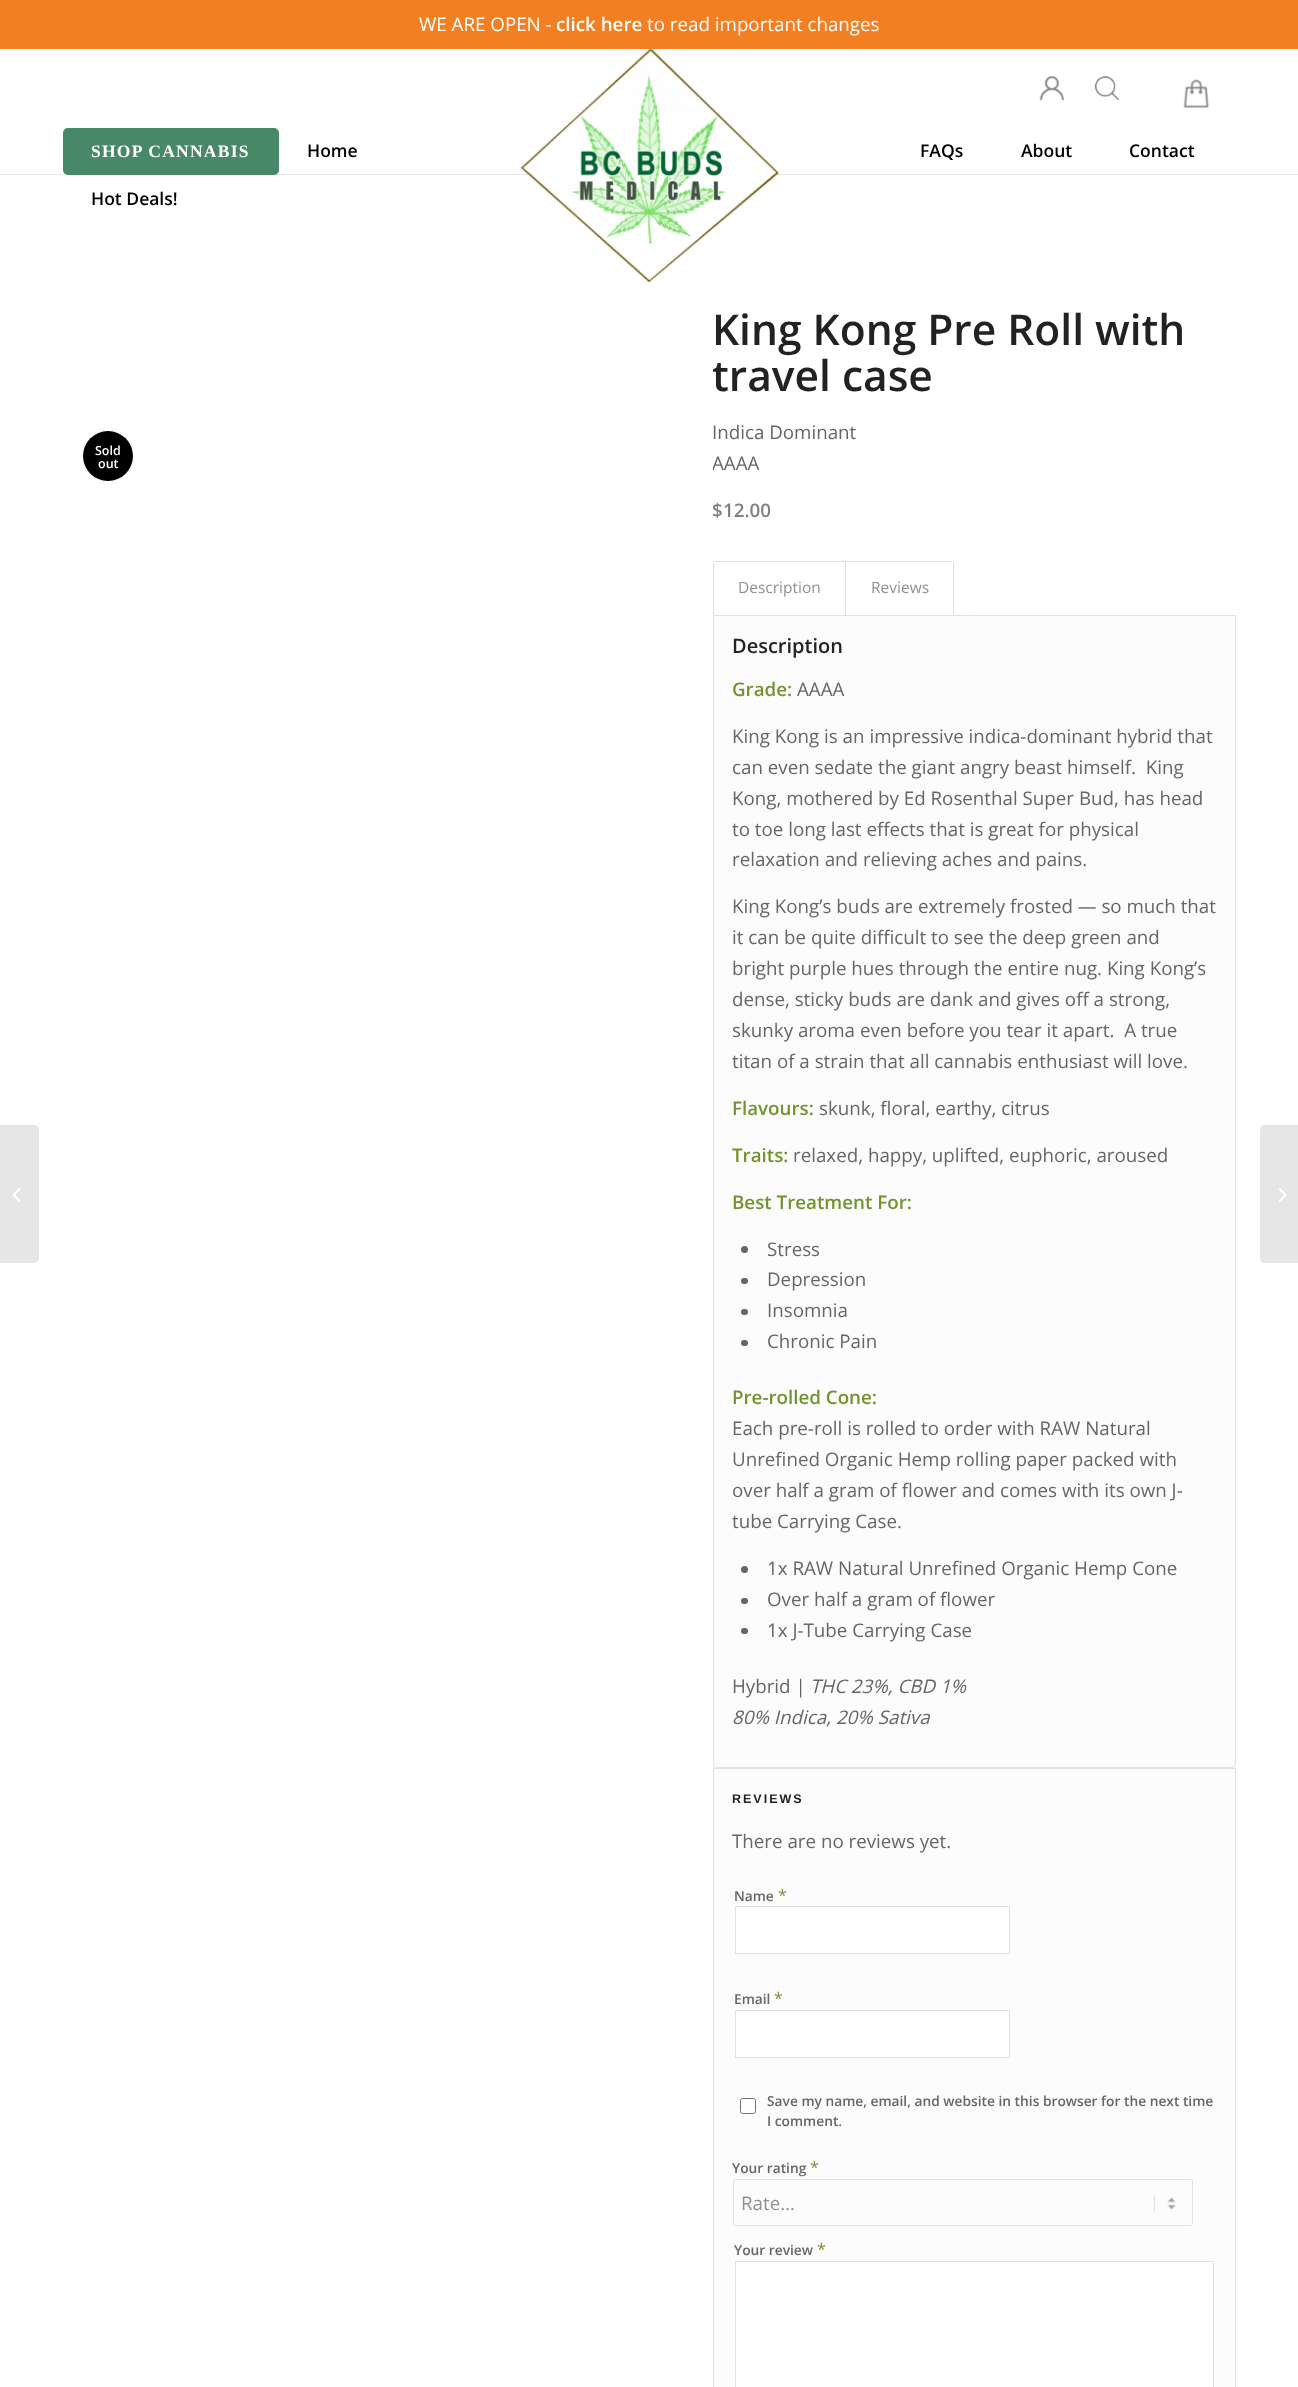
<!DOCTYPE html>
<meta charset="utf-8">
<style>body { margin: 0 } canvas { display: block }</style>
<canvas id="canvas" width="1298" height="2387"></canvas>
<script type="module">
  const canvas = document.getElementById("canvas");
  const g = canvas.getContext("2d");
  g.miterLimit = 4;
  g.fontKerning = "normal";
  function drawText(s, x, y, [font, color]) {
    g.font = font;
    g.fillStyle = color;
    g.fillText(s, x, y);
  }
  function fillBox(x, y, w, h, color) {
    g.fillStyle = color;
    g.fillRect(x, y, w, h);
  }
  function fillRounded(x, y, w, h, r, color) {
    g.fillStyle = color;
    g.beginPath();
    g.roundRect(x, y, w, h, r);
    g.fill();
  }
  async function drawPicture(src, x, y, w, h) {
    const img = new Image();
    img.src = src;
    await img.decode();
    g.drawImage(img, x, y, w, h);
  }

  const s1 = ["18.75px Open Sans", "#FFFFFF"];
  const s2 = ["600 18.75px Open Sans", "#FFFFFF"];
  const s3 = ["bold 17.5px Liberation Serif", "#FFFFFF"];
  const s4 = ["600 17.5px Open Sans", "#000000"];
  const s5 = ["600 12.5px Open Sans", "#FFFFFF"];
  const s6 = ["600 42.5px Open Sans", "#222222"];
  const s7 = ["18.75px Open Sans", "#666666"];
  const s8 = ["600 18.75px Open Sans", "#808080"];
  const s9 = ["15.5px Open Sans", "#919191"];
  const s10 = ["600 20px Open Sans", "#222222"];
  const s11 = ["600 18.75px Open Sans", "#719430"];
  const s12 = ["italic 18.75px Open Sans", "#666666"];
  const s13 = ["bold 12.5px Liberation Sans", "#222222"];
  const s14 = ["600 13.75px Open Sans", "#666666"];
  const s15 = ["16px Open Sans", "#719430"];
  const s16 = ["18.75px Open Sans", "#919191"];

  fillBox(0, 0, 1298, 2387, "#FFFFFF");
  g.fillStyle = "#E6E6E6";
  g.beginPath();
  g.roundRect(0, 1125, 39, 138, [0, 5, 5, 0]);
  g.fill();
  await drawPicture("pic1.png", 13, 1188, 7, 14);
  fillBox(0, 0, 1298, 49, "#F27F21");
  drawText("WE ARE OPEN -", 419, 31, s1);
  drawText("click here", 556, 31, s2);
  drawText("to read important changes", 647, 31, s1);
  fillBox(0, 174, 1298, 1, "#E8E9EB");
  fillRounded(63, 128, 216, 47, 5, "#478867");
  g.letterSpacing = "1.25px";
  drawText("SHOP CANNABIS", 91, 157, s3);
  g.letterSpacing = "0px";
  drawText("Home", 307, 157, s4);
  drawText("Hot Deals!", 91, 205, s4);
  await drawPicture("pic2.png", 520, 48, 259, 235);
  await drawPicture("pic3.png", 1039, 76, 25, 25);
  await drawPicture("pic4.png", 1094, 76, 25, 25);
  await drawPicture("pic5.png", 1183, 79, 26, 30);
  drawText("FAQs", 920, 157, s4);
  drawText("About", 1021, 157, s4);
  drawText("Contact", 1129, 157, s4);
  g.beginPath();
  g.arc(108, 456, 25, 0, Math.PI * 2);
  g.fill();
  drawText("Sold", 95, 455, s5);
  drawText("out", 98, 468, s5);
  drawText("King Kong Pre Roll with", 712, 345, s6);
  g.save();
  g.beginPath();
  g.rect(713, 306, 523, 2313);
  g.clip();
  drawText("travel case", 712, 391, s6);
  g.restore();
  drawText("Indica Dominant", 712, 439, s7);
  g.save();
  g.beginPath();
  g.rect(713, 306, 523, 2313);
  g.clip();
  drawText("AAAA", 712, 470, s7);
  drawText("$", 712, 517, s8);
  g.restore();
  drawText("12.00", 723, 517, s8);
  fillBox(714, 561, 132, 1, "#E1E1E1");
  g.fillStyle = "#FCFCFC";
  g.beginPath();
  g.roundRect(713.5, 615.5, 522, 1152, [0, 0, 3.5, 3.5]);
  g.fill();
  g.strokeStyle = "#E1E1E1";
  g.stroke();
  fillBox(845, 561, 1, 55, "#E1E1E1");
  fillBox(713, 563, 1, 53, "#E1E1E1");
  drawText("Description", 738, 593, s9);
  fillBox(845, 561, 108, 1, "#E1E1E1");
  fillBox(953, 563, 1, 53, "#E1E1E1");
  drawText("Reviews", 871, 593, s9);
  drawText("Description", 732, 653, s10);
  drawText("Grade:", 732, 696, s11);
  drawText("AAAA", 797, 696, s7);
  drawText("King Kong is an impressive indica-dominant hybrid that", 732, 743, s7);
  drawText("can even sedate the giant angry beast himself.  King", 732, 774, s7);
  drawText("Kong, mothered by Ed Rosenthal Super Bud, has head", 732, 805, s7);
  drawText("to toe long last effects that is great for physical", 732, 836, s7);
  drawText("relaxation and relieving aches and pains.", 732, 866, s7);
  drawText("King Kong’s buds are extremely frosted — so much that", 732, 913, s7);
  drawText("it can be quite difficult to see the deep green and", 732, 944, s7);
  drawText("bright purple hues through the entire nug. King Kong’s", 732, 975, s7);
  drawText("dense, sticky buds are dank and gives off a strong,", 732, 1006, s7);
  drawText("skunky aroma even before you tear it apart.  A true", 732, 1037, s7);
  drawText("titan of a strain that all cannabis enthusiast will love.", 732, 1068, s7);
  drawText("Flavours:", 732, 1115, s11);
  drawText("skunk, floral, earthy, citrus", 819, 1115, s7);
  drawText("Traits:", 732, 1162, s11);
  drawText("relaxed, happy, uplifted, euphoric, aroused", 793, 1162, s7);
  drawText("Best Treatment For:", 732, 1209, s11);
  g.fillStyle = "#666666";
  g.beginPath();
  g.arc(744.5, 1249.5, 3.5, 0, Math.PI * 2);
  g.fill();
  drawText("Stress", 767, 1256, s7);
  fillRounded(741, 1278, 7, 6, 3, "#666666");
  drawText("Depression", 767, 1286, s7);
  fillRounded(741, 1309, 7, 6, 3, "#666666");
  drawText("Insomnia", 767, 1317, s7);
  fillRounded(741, 1340, 7, 6, 3, "#666666");
  drawText("Chronic Pain", 767, 1348, s7);
  drawText("Pre-rolled Cone:", 732, 1404, s11);
  drawText("Each pre-roll is rolled to order with RAW Natural", 732, 1435, s7);
  drawText("Unrefined Organic Hemp rolling paper packed with", 732, 1466, s7);
  drawText("over half a gram of flower and comes with its own J-", 732, 1497, s7);
  drawText("tube Carrying Case.", 732, 1528, s7);
  g.beginPath();
  g.arc(744.5, 1569.5, 3.5, 0, Math.PI * 2);
  g.fill();
  drawText("1x RAW Natural Unrefined Organic Hemp Cone", 767, 1575, s7);
  fillRounded(741, 1598, 7, 6, 3, "#666666");
  drawText("Over half a gram of flower", 767, 1606, s7);
  fillRounded(741, 1628, 7, 6, 3, "#666666");
  drawText("1x J-Tube Carrying Case", 767, 1637, s7);
  drawText("Hybrid |", 732, 1693, s7);
  drawText("THC 23%, CBD 1%", 810, 1693, s12);
  drawText("80% Indica, 20% Sativa", 732, 1724, s12);
  g.fillStyle = "#FCFCFC";
  g.beginPath();
  g.rect(713.5, 1768.5, 522, 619);
  g.fill();
  g.stroke();
  g.letterSpacing = "2px";
  drawText("REVIEWS", 732, 1803, s13);
  g.letterSpacing = "0px";
  drawText("There are no reviews yet.", 732, 1848, s7);
  drawText("Name", 734, 1901, s14);
  drawText("*", 778, 1901, s15);
  g.fillStyle = "#FFFFFF";
  g.beginPath();
  g.rect(735.5, 1906.5, 274, 47);
  g.fill();
  g.stroke();
  drawText("Email", 734, 2004, s14);
  drawText("*", 774, 2004, s15);
  g.fillStyle = "#FFFFFF";
  g.beginPath();
  g.rect(735.5, 2010.5, 274, 47);
  g.fill();
  g.stroke();
  g.beginPath();
  g.roundRect(740.5, 2098.5, 15, 15, 2);
  g.fill();
  g.strokeStyle = "#767676";
  g.stroke();
  drawText("Save my name, email, and website in this browser for the next time", 767, 2106, s14);
  drawText("I comment.", 767, 2126, s14);
  drawText("Your rating", 732, 2173, s14);
  drawText("*", 810, 2173, s15);
  await drawPicture("pic6.png", 1153, 2195, 23, 17);
  g.beginPath();
  g.roundRect(733.5, 2179.5, 459, 46, 2);
  g.strokeStyle = "#E1E1E1";
  g.stroke();
  drawText("Rate…", 741, 2210, s16);
  drawText("Your review", 734, 2255, s14);
  drawText("*", 817, 2255, s15);
  g.fillStyle = "#FFFFFF";
  g.beginPath();
  g.rect(735.5, 2261.5, 478, 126);
  g.fill();
  g.stroke();
  g.fillStyle = "#E6E6E6";
  g.beginPath();
  g.moveTo(1265, 1125);
  g.lineTo(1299, 1125);
  g.lineTo(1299, 1263);
  g.lineTo(1265, 1263);
  g.bezierCurveTo(1262, 1263, 1260, 1261, 1260, 1258);
  g.lineTo(1260, 1130);
  g.bezierCurveTo(1260, 1127, 1262, 1125, 1265, 1125);
  g.closePath();
  g.fill();
  await drawPicture("pic7.png", 1279, 1188, 7, 14);
</script>
